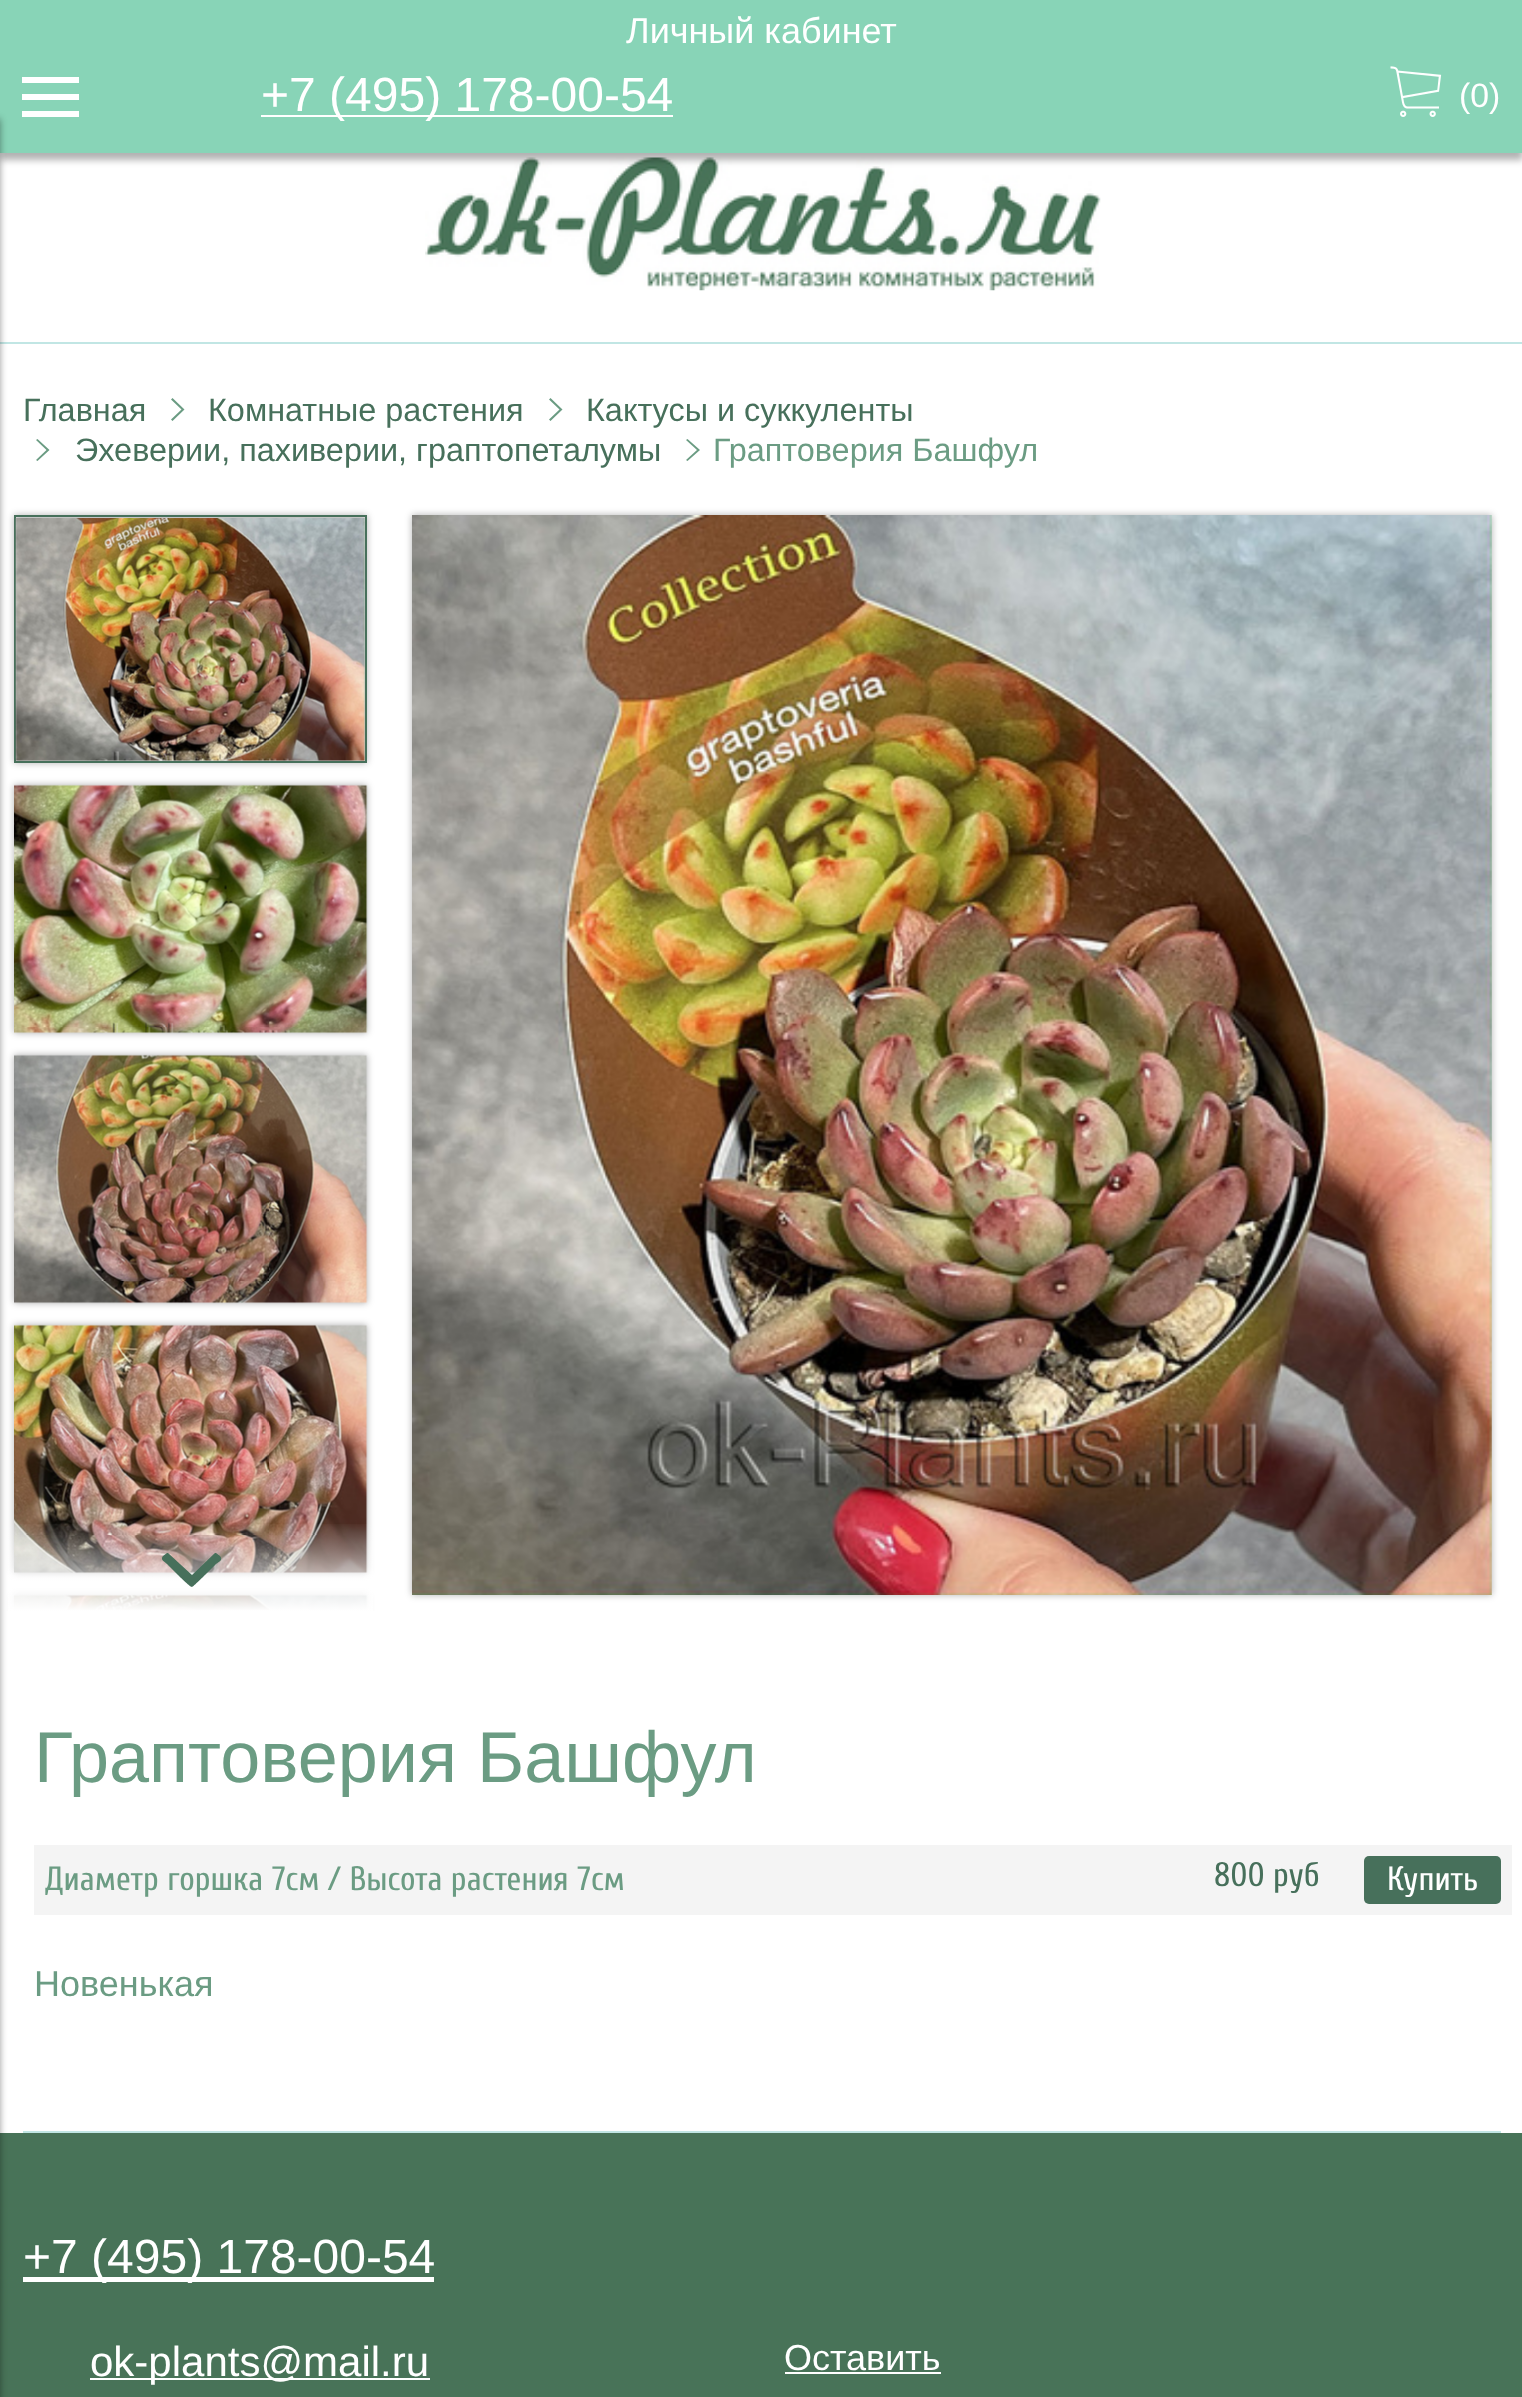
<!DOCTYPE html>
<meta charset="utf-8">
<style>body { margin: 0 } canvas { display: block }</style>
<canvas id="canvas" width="1522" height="2397"></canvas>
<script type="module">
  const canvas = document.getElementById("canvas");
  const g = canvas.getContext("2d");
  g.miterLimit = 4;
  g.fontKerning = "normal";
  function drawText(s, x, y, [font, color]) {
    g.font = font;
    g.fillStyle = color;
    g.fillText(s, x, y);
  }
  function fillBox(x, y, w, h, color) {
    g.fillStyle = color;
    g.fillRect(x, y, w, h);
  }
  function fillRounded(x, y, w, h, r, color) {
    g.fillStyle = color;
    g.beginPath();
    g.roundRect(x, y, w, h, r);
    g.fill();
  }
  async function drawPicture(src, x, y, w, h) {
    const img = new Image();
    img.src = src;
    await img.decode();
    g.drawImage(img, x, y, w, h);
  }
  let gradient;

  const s1 = ["36px Liberation Sans", "#FFFFFF"];
  const s2 = ["48px Liberation Sans", "#FFFFFF"];
  const s3 = ["33.75px Liberation Sans", "#FFFFFF"];
  const s4 = ["32.4px Liberation Sans", "#47705B"];
  const s5 = ["32.4px Liberation Sans", "#6B9C83"];
  const s6 = ["72px Liberation Sans", "#6B9C83"];
  const s7 = ["33.75px Cuprum", "#6B9C83"];
  const s8 = ["33.75px Cuprum", "#47705B"];
  const s9 = ["33.75px Cuprum", "#FFFFFF"];
  const s10 = ["36px Liberation Sans", "#6B9C83"];
  const s11 = ["42px Liberation Sans", "#FFFFFF"];

  fillBox(0, 0, 1522, 2397, "#487358");
  fillBox(0, 153, 1522, 1980, "#FFFFFF");
  await drawPicture("pic2.png", 425, 157, 676, 134);
  g.fillStyle = "rgba(0, 0, 0, 0.3)";
  g.filter = "blur(3.5px)";
  g.beginPath();
  g.rect(0, 7, 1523, 153);
  g.fill();
  g.filter = "none";
  fillBox(0, 0, 1522, 153, "#88D4B7");
  drawText("Личный кабинет", 626, 43, s1);
  g.beginPath();
  g.moveTo(22, 100);
  g.lineTo(22, 94);
  g.lineTo(79, 94);
  g.lineTo(79, 100);
  g.closePath();
  g.moveTo(22, 83);
  g.lineTo(22, 77);
  g.lineTo(79, 77);
  g.lineTo(79, 83);
  g.closePath();
  g.moveTo(22, 117);
  g.lineTo(22, 111);
  g.lineTo(79, 111);
  g.lineTo(79, 117);
  g.closePath();
  g.fill();
  fillBox(261, 115, 412, 2, "#FFFFFF");
  drawText("+7 (495) 178-00-54", 261, 111, s2);
  await drawPicture("pic1.png", 1390, 66, 52, 51);
  drawText("(0)", 1459, 107, s3);
  fillBox(0, 342, 1522, 2, "#C1E6E4");
  g.fillStyle = "rgba(0, 0, 0, 0.3)";
  g.filter = "blur(3.5px)";
  g.beginPath();
  g.rect(14, 1325, 353, 248);
  g.fill();
  g.filter = "none";
  await drawPicture("pic6.png", 14, 1324, 354, 250);
  fillBox(34, 1845, 1478, 70, "#F4F4F4");
  g.save();
  g.beginPath();
  g.rect(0, 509, 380, 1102);
  g.clip();
  g.fillStyle = "rgba(0, 0, 0, 0.3)";
  g.filter = "blur(3.5px)";
  g.beginPath();
  g.rect(14, 1595, 353, 248);
  g.fill();
  g.filter = "none";
  g.restore();
  await drawPicture("pic7.png", 14, 1594, 354, 16);
  gradient = g.createLinearGradient(190, 1512, 190, 1611);
  gradient.addColorStop(0.1, "rgba(255, 255, 255, 0)");
  gradient.addColorStop(1, "#FFFFFF");
  g.fillStyle = gradient;
  g.fillRect(8, 1524, 365, 87);
  g.fillStyle = "rgba(0, 0, 0, 0.4)";
  g.filter = "blur(3.5px)";
  g.beginPath();
  g.rect(-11, 119, 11, 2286);
  g.fill();
  g.filter = "none";
  drawText("Главная", 23, 421, s4);
  g.fillStyle = "#6B9C83";
  g.beginPath();
  g.moveTo(171, 399.5);
  g.lineTo(172.5, 398);
  g.lineTo(184.5, 409.5);
  g.lineTo(172.5, 421);
  g.lineTo(171, 419.5);
  g.lineTo(181.5, 409.5);
  g.closePath();
  g.fill();
  drawText("Комнатные растения", 208, 421, s4);
  g.fillStyle = "#6B9C83";
  g.beginPath();
  g.moveTo(549, 399.5);
  g.lineTo(550.5, 398);
  g.lineTo(562.5, 409.5);
  g.lineTo(550.5, 421);
  g.lineTo(549, 419.5);
  g.lineTo(559.5, 409.5);
  g.closePath();
  g.fill();
  drawText("Кактусы и суккуленты", 586, 421, s4);
  g.fillStyle = "#6B9C83";
  g.beginPath();
  g.moveTo(36, 440);
  g.lineTo(37.5, 439);
  g.lineTo(49.5, 450);
  g.lineTo(37.5, 461);
  g.lineTo(36, 460);
  g.lineTo(46.5, 450);
  g.closePath();
  g.fill();
  drawText("Эхеверии, пахиверии, граптопеталумы", 75, 461, s4);
  g.fillStyle = "#6B9C83";
  g.beginPath();
  g.moveTo(686, 440);
  g.lineTo(687.5, 439);
  g.lineTo(700, 450);
  g.lineTo(687.5, 461);
  g.lineTo(686, 460);
  g.lineTo(697, 450);
  g.closePath();
  g.fill();
  drawText("Граптоверия Башфул", 713, 461, s5);
  g.fillStyle = "rgba(0, 0, 0, 0.3)";
  g.filter = "blur(3.5px)";
  g.beginPath();
  g.rect(14, 515, 353, 248);
  g.fill();
  g.filter = "none";
  g.strokeStyle = "#47705B";
  g.lineWidth = 2;
  g.strokeRect(15, 516, 351, 246);
  await drawPicture("pic3.png", 15, 518, 350, 243);
  g.filter = "blur(3.5px)";
  g.beginPath();
  g.rect(14, 785, 353, 248);
  g.fill();
  g.filter = "none";
  await drawPicture("pic4.png", 14, 784, 354, 250);
  g.filter = "blur(3.5px)";
  g.beginPath();
  g.rect(14, 1055, 353, 248);
  g.fill();
  g.filter = "none";
  await drawPicture("pic5.png", 14, 1054, 354, 250);
  g.fillStyle = "#47705B";
  g.beginPath();
  g.moveTo(192, 1575);
  g.lineTo(215, 1553);
  g.lineTo(216, 1553);
  g.lineTo(220, 1556);
  g.bezierCurveTo(223, 1560, 220, 1561, 216, 1564);
  g.lineTo(207, 1573);
  g.bezierCurveTo(205, 1575, 193, 1587, 192, 1587);
  g.bezierCurveTo(190, 1587, 178, 1575, 176, 1573);
  g.lineTo(167, 1564);
  g.bezierCurveTo(164, 1561, 160, 1560, 163, 1556);
  g.lineTo(167, 1553);
  g.lineTo(168, 1553);
  g.closePath();
  g.fill();
  g.fillStyle = "rgba(0, 0, 0, 0.3)";
  g.filter = "blur(3.5px)";
  g.beginPath();
  g.rect(412, 515, 1080, 1080);
  g.fill();
  g.filter = "none";
  await drawPicture("pic8.png", 412, 515, 1080, 1080);
  drawText("Граптоверия Башфул", 34, 1782, s6);
  drawText("Диаметр горшка 7см / Высота растения 7см", 45, 1890, s7);
  drawText("800 руб", 1214, 1886, s8);
  fillRounded(1364, 1856, 137, 48, 5, "#47705B");
  drawText("Купить", 1387, 1890, s9);
  drawText("Новенькая", 34, 1996, s10);
  fillBox(23, 2131, 1478, 2, "#C1E6E4");
  fillBox(23, 2277, 411, 5, "#FFFFFF");
  drawText("+7 (495) 178-00-54", 23, 2273, s2);
  fillBox(90, 2378, 340, 2, "#FFFFFF");
  drawText("ok-plants@mail.ru", 90, 2376, s11);
  drawText("Оставить", 784, 2370, s1);
  fillBox(785, 2372, 156, 2, "#FFFFFF");
</script>
